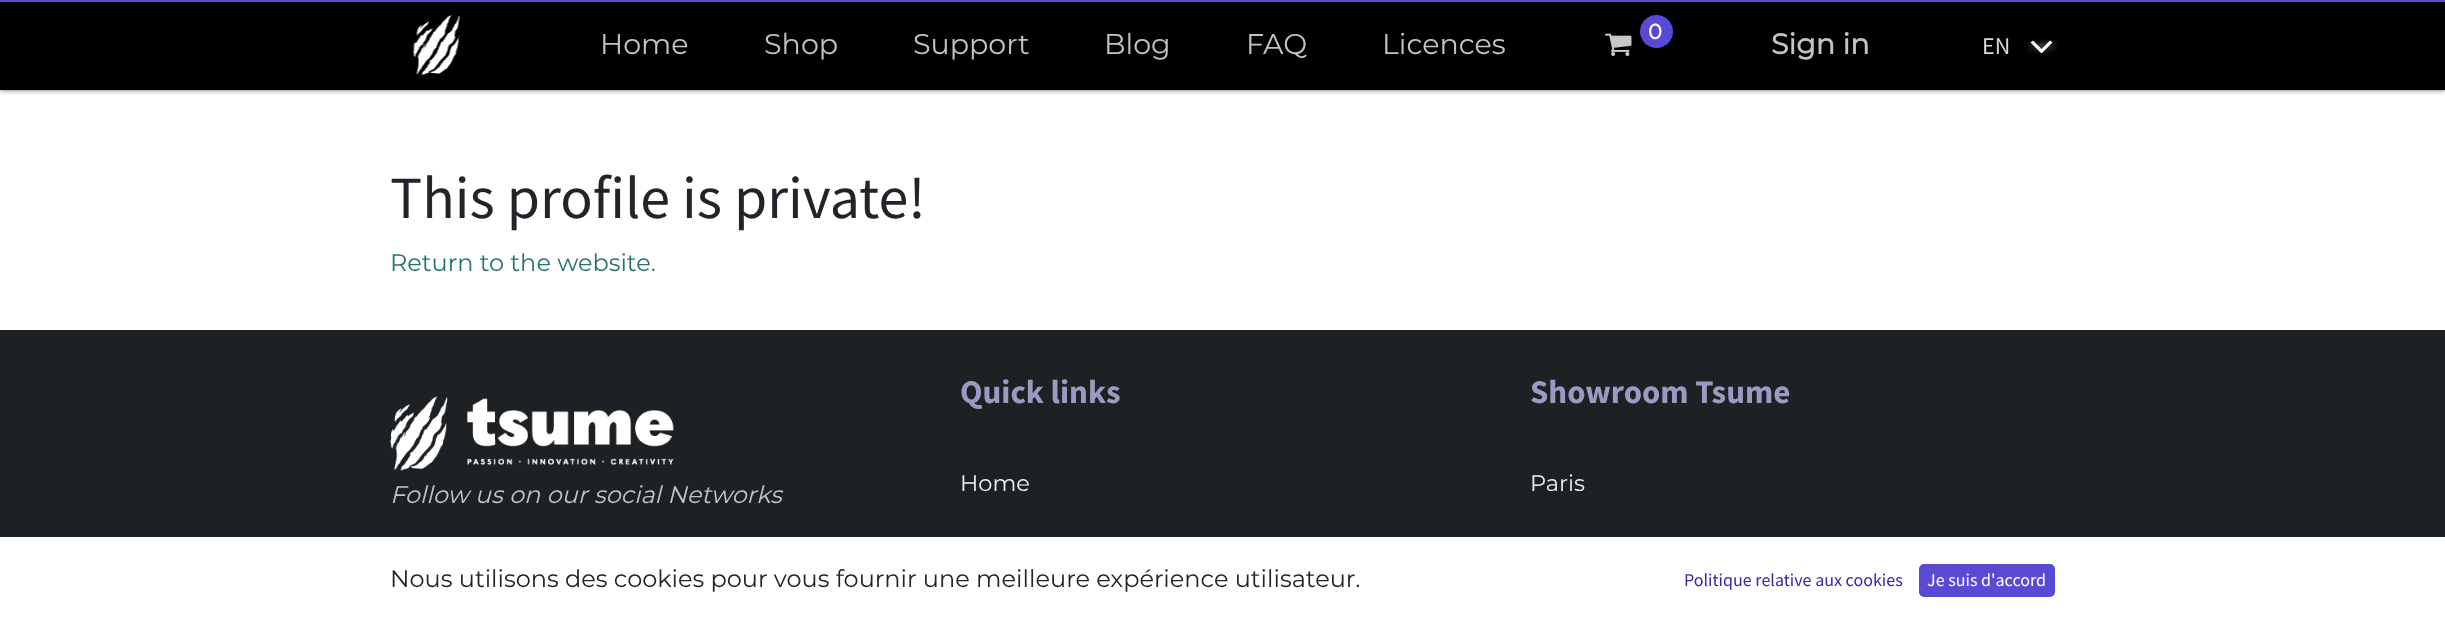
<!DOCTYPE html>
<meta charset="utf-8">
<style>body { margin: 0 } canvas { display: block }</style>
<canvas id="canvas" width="2445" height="621"></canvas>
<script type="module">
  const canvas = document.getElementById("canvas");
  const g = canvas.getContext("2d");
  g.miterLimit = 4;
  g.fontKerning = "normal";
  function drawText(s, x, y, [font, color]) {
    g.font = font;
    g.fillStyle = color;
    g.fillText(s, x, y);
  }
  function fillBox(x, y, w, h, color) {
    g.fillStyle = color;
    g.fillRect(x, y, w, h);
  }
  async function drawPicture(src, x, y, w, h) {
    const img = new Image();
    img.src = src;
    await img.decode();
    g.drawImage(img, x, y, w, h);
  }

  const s1 = ["28.5px Montserrat", "#C3C3C3"];
  const s2 = ["bold 21px Montserrat", "#FFFFFF"];
  const s3 = ["bold 28.5px Montserrat", "#C3C3C3"];
  const s4 = ["24px Source Sans Pro", "#D7D7D7"];
  const s5 = ["60px Source Sans Pro", "#212529"];
  const s6 = ["24px Montserrat", "#267372"];
  const s7 = ["bold 33px Source Sans Pro", "#9A9BC1"];
  const s8 = ["22.5px Montserrat", "#EFEFEF"];
  const s9 = ["italic 24px Montserrat", "#C3C3C3"];
  const s10 = ["24px Montserrat", "#212529"];
  const s11 = ["18px Source Sans Pro", "#3528AB"];
  const s12 = ["18px Source Sans Pro", "#FFFFFF"];

  fillBox(0, 0, 2445, 621, "#FFFFFF");
  g.fillStyle = "#757575";
  g.filter = "blur(2px)";
  g.beginPath();
  g.rect(0, 0, 2445, 90);
  g.fill();
  g.filter = "none";
  fillBox(0, 2, 2445, 88, "#000000");
  g.save();
  g.beginPath();
  g.rect(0, 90, 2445, 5);
  g.clip();
  g.fillStyle = "rgba(0, 0, 0, 0.07)";
  g.filter = "blur(3px)";
  g.beginPath();
  g.rect(0, 3, 2445, 90);
  g.fill();
  g.filter = "none";
  g.restore();
  fillBox(0, 0, 2445, 2, "#584AD5");
  await drawPicture("pic1.png", 413, 15, 47, 60);
  drawText("Home", 600, 54, s1);
  drawText("Shop", 764, 54, s1);
  drawText("Support", 913, 54, s1);
  drawText("Blog", 1104, 54, s1);
  drawText("FAQ", 1246, 54, s1);
  drawText("Licences", 1382, 54, s1);
  await drawPicture("pic2.png", 1605, 33, 27, 23);
  g.fillStyle = "#584AD5";
  g.beginPath();
  g.arc(1656.5, 31.5, 16.5, 0, Math.PI * 2);
  g.fill();
  drawText("0", 1648, 39, s2);
  drawText("Sign in", 1771, 54, s3);
  g.fillStyle = "rgba(213, 213, 213, 0.46)";
  g.filter = "blur(3px)";
  g.beginPath();
  g.rect(2030, 45, 15, 3);
  g.fill();
  g.filter = "none";
  g.fillStyle = "#FFFFFF";
  g.beginPath();
  g.moveTo(2033, 40.5);
  g.lineTo(2043.5, 51);
  g.lineTo(2041, 53);
  g.lineTo(2030.5, 42.5);
  g.closePath();
  g.fill();
  drawText("EN", 1982, 54, s4);
  g.fillStyle = "rgba(213, 213, 213, 0.46)";
  g.filter = "blur(3px)";
  g.beginPath();
  g.rect(2039, 45, 15, 3);
  g.fill();
  g.filter = "none";
  g.fillStyle = "#FFFFFF";
  g.beginPath();
  g.moveTo(2039.5, 51);
  g.lineTo(2050, 40.5);
  g.lineTo(2052.5, 42.5);
  g.lineTo(2042, 53);
  g.closePath();
  g.fill();
  drawText("This profile is private!", 390, 218, s5);
  drawText("Return to the website.", 390, 271, s6);
  fillBox(0, 330, 2445, 207, "#1E2124");
  drawText("Quick links", 960, 403, s7);
  drawText("Home", 960, 491, s8);
  drawText("Showroom Tsume", 1530, 403, s7);
  drawText("Paris", 1530, 491, s8);
  await drawPicture("pic3.png", 390, 396, 284, 75);
  drawText("Follow us on our social Networks", 390, 503, s9);
  drawText("Nous utilisons des cookies pour vous fournir une meilleure expérience utilisateur.", 390, 587, s10);
  drawText("Politique relative aux cookies", 1684, 586, s11);
  g.fillStyle = "#584AD5";
  g.beginPath();
  g.roundRect(1920, 565, 134, 31, 4);
  g.fill();
  g.strokeStyle = "#584AD5";
  g.lineWidth = 2;
  g.stroke();
  drawText("Je suis d'accord", 1927, 586, s12);
</script>
